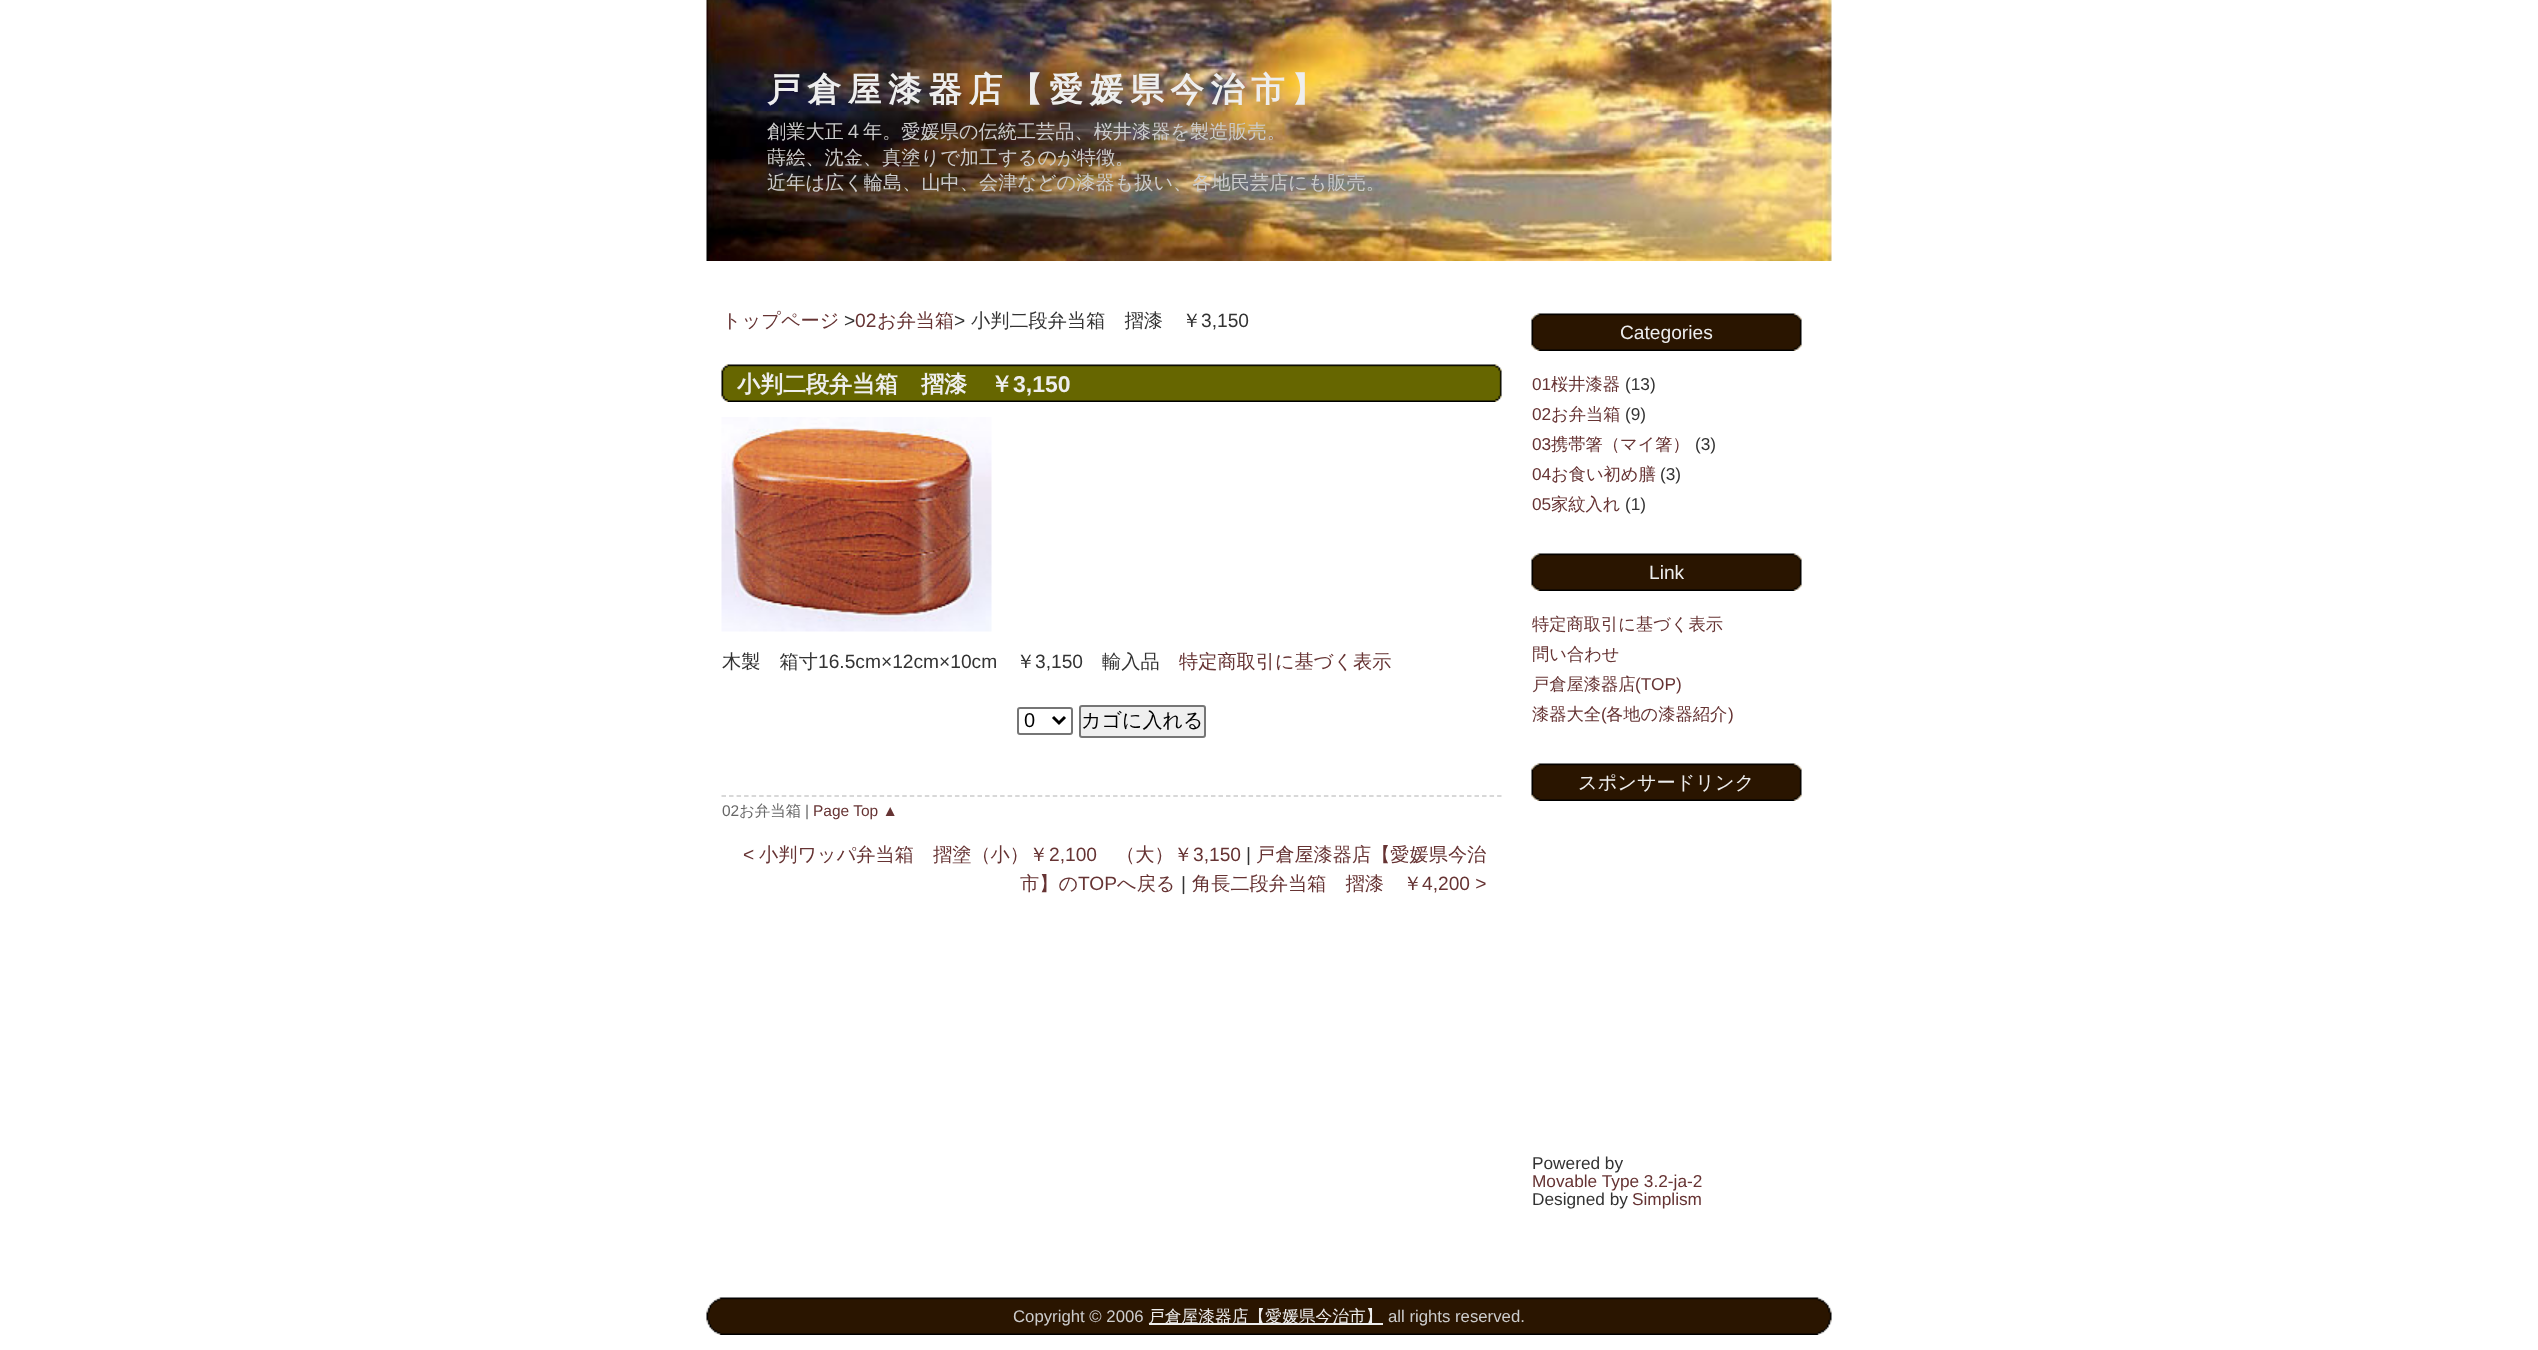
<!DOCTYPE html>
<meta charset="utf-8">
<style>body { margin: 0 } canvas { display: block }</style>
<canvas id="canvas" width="2538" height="1350"></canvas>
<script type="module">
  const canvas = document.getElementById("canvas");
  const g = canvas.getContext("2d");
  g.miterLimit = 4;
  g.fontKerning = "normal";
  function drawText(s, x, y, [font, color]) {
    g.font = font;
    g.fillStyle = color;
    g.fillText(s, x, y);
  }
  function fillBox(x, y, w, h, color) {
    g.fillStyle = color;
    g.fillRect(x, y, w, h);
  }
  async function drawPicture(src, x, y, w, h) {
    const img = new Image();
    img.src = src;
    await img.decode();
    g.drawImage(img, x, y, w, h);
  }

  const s1 = ["bold 33.6px WenQuanYi Zen Hei", "#EEEEEE"];
  const s2 = ["500 19.2px WenQuanYi Zen Hei", "#CCCCCC"];
  const s3 = ["500 19.2px WenQuanYi Zen Hei", "#663333"];
  const s4 = ["19.2px Liberation Sans", "#333333"];
  const s5 = ["19.2px Liberation Sans", "#663333"];
  const s6 = ["500 19.2px WenQuanYi Zen Hei", "#333333"];
  const s7 = ["bold 23px WenQuanYi Zen Hei", "#EEEEEE"];
  const s8 = ["bold 23px Liberation Sans", "#EEEEEE"];
  const s9 = ["20px Liberation Sans", "#000000"];
  const s10 = ["500 20px WenQuanYi Zen Hei", "#000000"];
  const s11 = ["15.5px Liberation Sans", "#666666"];
  const s12 = ["500 15.5px WenQuanYi Zen Hei", "#666666"];
  const s13 = ["15.5px Liberation Sans", "#663333"];
  const s14 = ["19.2px Liberation Sans", "#EEEEEE"];
  const s15 = ["17.25px Liberation Sans", "#663333"];
  const s16 = ["500 17.25px WenQuanYi Zen Hei", "#663333"];
  const s17 = ["17.25px Liberation Sans", "#333333"];
  const s18 = ["500 19.2px WenQuanYi Zen Hei", "#EEEEEE"];
  const s19 = ["16.75px Liberation Sans", "#CCCCCC"];
  const s20 = ["500 16.75px WenQuanYi Zen Hei", "#EEEEEE"];

  fillBox(0, 0, 2538, 1350, "#FFFFFF");
  await drawPicture("pic1.png", 706, 0, 1126, 261);
  g.letterSpacing = "6.75px";
  drawText("戸倉屋漆器店【愛媛県今治市】", 767, 101, s1);
  g.letterSpacing = "0px";
  drawText("創業大正４年。愛媛県の伝統工芸品、桜井漆器を製造販売。", 767, 138, s2);
  drawText("蒔絵、沈金、真塗りで加工するのが特徴。", 767, 164, s2);
  drawText("近年は広く輪島、山中、会津などの漆器も扱い、各地民芸店にも販売。", 767, 189, s2);
  drawText("トップページ", 722, 327, s3);
  drawText(">", 844, 327, s4);
  drawText("02", 855, 327, s5);
  drawText("お弁当箱", 877, 327, s3);
  drawText(">", 954, 327, s4);
  drawText("小判二段弁当箱　摺漆　￥", 971, 327, s6);
  drawText("3,150", 1201, 327, s4);
  await drawPicture("pic2.png", 721, 364, 781, 38);
  drawText("小判二段弁当箱　摺漆　￥", 737, 392, s7);
  drawText("3,150", 1013, 392, s8);
  await drawPicture("pic3.png", 721, 417, 271, 215);
  drawText("木製　箱寸", 722, 668, s6);
  drawText("16.5cm×12cm×10cm", 818, 668, s4);
  drawText("￥", 1016, 668, s6);
  drawText("3,150", 1035, 668, s4);
  drawText("輸入品", 1102, 668, s6);
  drawText("特定商取引に基づく表示", 1179, 668, s3);
  g.beginPath();
  g.roundRect(1018, 708, 54, 26, 2);
  g.strokeStyle = "#767676";
  g.lineWidth = 2;
  g.stroke();
  g.beginPath();
  g.moveTo(1053, 717);
  g.lineTo(1059, 723);
  g.lineTo(1065, 717);
  g.strokeStyle = "#000000";
  g.lineWidth = 3;
  g.stroke();
  drawText("0", 1024, 727, s9);
  g.fillStyle = "#EFEFEF";
  g.beginPath();
  g.roundRect(1080, 706, 125, 31, 2);
  g.fill();
  g.strokeStyle = "#767676";
  g.lineWidth = 2;
  g.stroke();
  drawText("カゴに入れる", 1081, 727, s10);
  g.beginPath();
  g.moveTo(721.5, 796);
  g.lineTo(1501.5, 796);
  g.strokeStyle = "#CCCCCC";
  g.lineWidth = 1.5;
  g.setLineDash([4.5, 3.03]);
  g.stroke();
  drawText("02", 722, 816, s11);
  drawText("お弁当箱", 739, 816, s12);
  drawText("|", 805, 816, s11);
  drawText("Page Top ▲", 813, 816, s13);
  drawText("<", 743, 861, s5);
  drawText("小判ワッパ弁当箱　摺塗（小）￥", 759, 861, s3);
  drawText("2,100", 1049, 861, s5);
  drawText("（大）￥", 1116, 861, s3);
  drawText("3,150", 1193, 861, s5);
  drawText("|", 1246, 861, s4);
  drawText("戸倉屋漆器店【愛媛県今治", 1256, 861, s3);
  drawText("市】の", 1020, 890, s3);
  drawText("TOP", 1078, 890, s5);
  drawText("へ戻る", 1117, 890, s3);
  drawText("|", 1181, 890, s4);
  drawText("角長二段弁当箱　摺漆　￥", 1192, 890, s3);
  drawText("4,200 >", 1422, 890, s5);
  await drawPicture("pic4.png", 1531, 313, 271, 38);
  drawText("Categories", 1620, 339, s14);
  drawText("01", 1532, 390, s15);
  drawText("桜井漆器", 1551, 390, s16);
  drawText("(13)", 1625, 390, s17);
  drawText("02", 1532, 420, s15);
  drawText("お弁当箱", 1551, 420, s16);
  drawText("(9)", 1625, 420, s17);
  drawText("03", 1532, 450, s15);
  drawText("携帯箸（マイ箸）", 1551, 450, s16);
  drawText("(3)", 1695, 450, s17);
  drawText("04", 1532, 480, s15);
  drawText("お食い初め膳", 1551, 480, s16);
  drawText("(3)", 1660, 480, s17);
  drawText("05", 1532, 510, s15);
  drawText("家紋入れ", 1551, 510, s16);
  drawText("(1)", 1625, 510, s17);
  await drawPicture("pic4.png", 1531, 553, 271, 38);
  drawText("Link", 1649, 579, s14);
  drawText("特定商取引に基づく表示", 1532, 630, s16);
  drawText("問い合わせ", 1532, 660, s16);
  drawText("戸倉屋漆器店", 1532, 690, s16);
  drawText("(TOP)", 1635, 690, s15);
  drawText("漆器大全", 1532, 720, s16);
  drawText("(", 1601, 720, s15);
  drawText("各地の漆器紹介", 1606, 720, s16);
  drawText(")", 1728, 720, s15);
  await drawPicture("pic4.png", 1531, 763, 271, 38);
  drawText("スポンサードリンク", 1578, 789, s18);
  drawText("Powered by", 1532, 1169, s17);
  drawText("Movable Type 3.2-ja-2", 1532, 1187, s15);
  drawText("Designed by", 1532, 1205, s17);
  drawText("Simplism", 1632, 1205, s15);
  await drawPicture("pic5.png", 706, 1297, 1126, 38);
  drawText("Copyright © 2006", 1013, 1322, s19);
  fillBox(1149, 1323, 234, 2, "#EEEEEE");
  drawText("戸倉屋漆器店【愛媛県今治市】", 1148, 1322, s20);
  drawText("all rights reserved.", 1388, 1322, s19);
</script>
